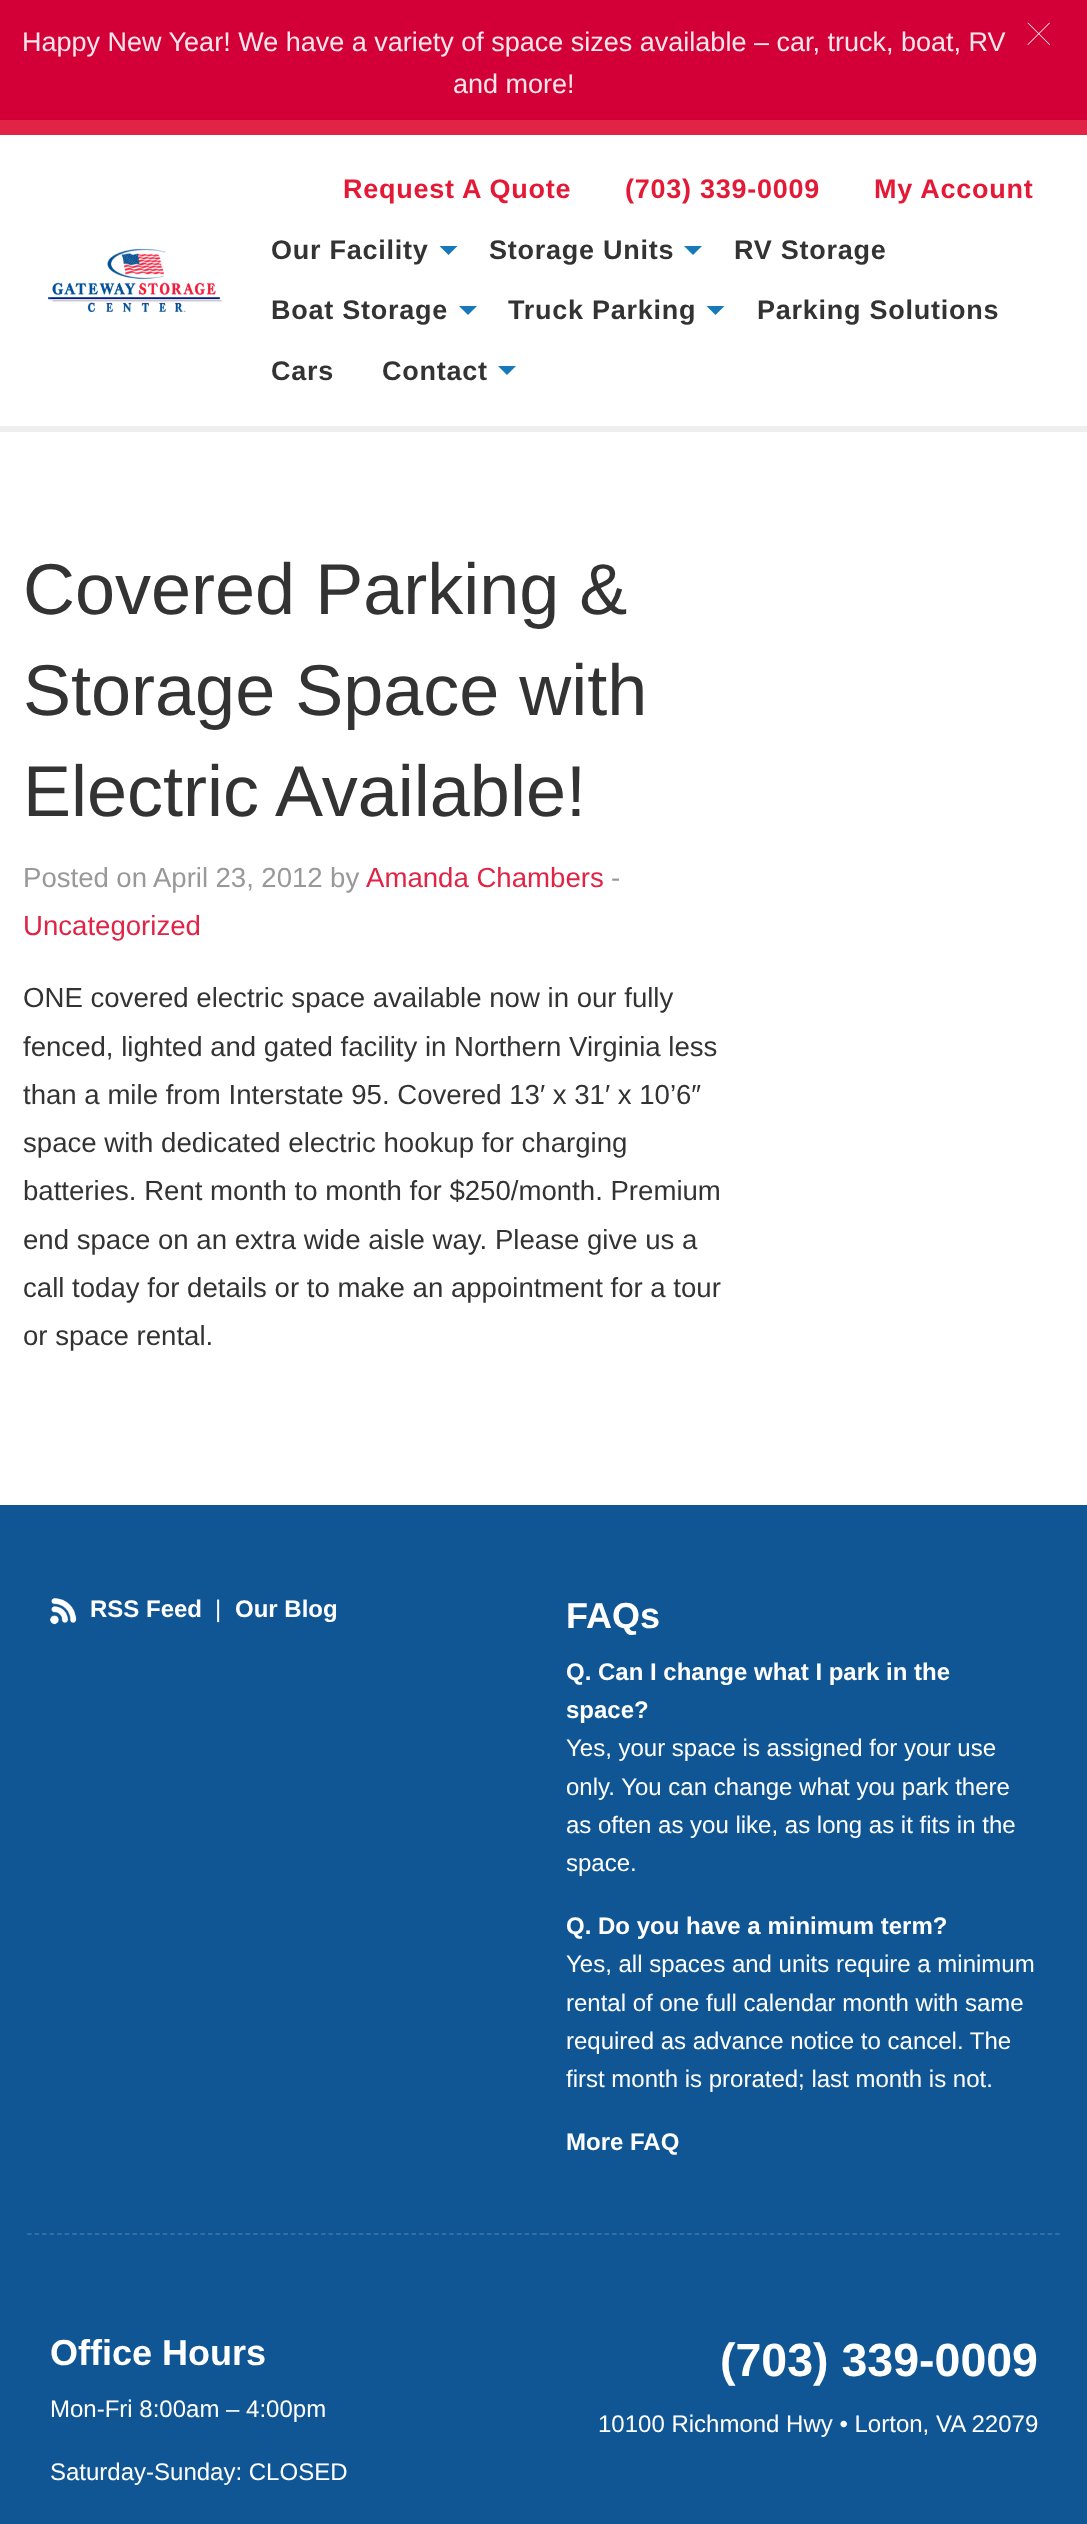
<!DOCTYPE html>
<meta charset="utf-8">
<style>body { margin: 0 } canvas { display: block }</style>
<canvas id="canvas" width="1087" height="2524"></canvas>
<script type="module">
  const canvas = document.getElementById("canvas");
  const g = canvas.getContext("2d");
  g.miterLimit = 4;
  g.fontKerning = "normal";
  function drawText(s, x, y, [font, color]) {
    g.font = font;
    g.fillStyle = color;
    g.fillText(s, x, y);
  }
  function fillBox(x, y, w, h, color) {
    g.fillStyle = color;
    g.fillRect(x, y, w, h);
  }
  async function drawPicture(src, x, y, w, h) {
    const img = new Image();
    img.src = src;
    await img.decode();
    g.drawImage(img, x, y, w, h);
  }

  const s1 = ["27px Liberation Sans", "#FBE6EB"];
  const s2 = ["bold 27px Liberation Sans", "#E31936"];
  const s3 = ["bold 27px Liberation Sans", "#333333"];
  const s4 = ["72px Liberation Sans", "#333333"];
  const s5 = ["27.6px Liberation Sans", "#999999"];
  const s6 = ["27.6px Liberation Sans", "#E12345"];
  const s7 = ["27.6px Liberation Sans", "#333333"];
  const s8 = ["bold 24px Liberation Sans", "#FFFFFF"];
  const s9 = ["24px Liberation Sans", "#FFFFFF"];
  const s10 = ["bold 36px Liberation Sans", "#FFFFFF"];
  const s11 = ["bold 46.5px Liberation Sans", "#FFFFFF"];

  fillBox(0, 0, 1087, 2524, "#FFFFFF");
  fillBox(0, 0, 1087, 120, "#D30038");
  drawText("Happy New Year! We have a variety of space sizes available – car, truck, boat, RV", 22, 51, s1);
  drawText("and more!", 453, 93, s1);
  await drawPicture("pic1.png", 1027, 22, 23, 23);
  fillBox(0, 120, 1087, 15, "#E12345");
  fillBox(0, 426, 1087, 6, "#EEEEEE");
  await drawPicture("pic2.png", 48, 248, 176, 64);
  g.letterSpacing = "0.75px";
  drawText("Request A Quote", 343, 198, s2);
  drawText("(703) 339-0009", 625, 198, s2);
  drawText("My Account", 874, 198, s2);
  drawText("Our Facility", 271, 259, s3);
  g.fillStyle = "#1779BA";
  g.beginPath();
  g.moveTo(439.5, 246);
  g.lineTo(457.5, 246);
  g.lineTo(448.5, 255);
  g.closePath();
  g.fill();
  drawText("Storage Units", 489, 259, s3);
  g.fillStyle = "#1779BA";
  g.beginPath();
  g.moveTo(684, 246);
  g.lineTo(702, 246);
  g.lineTo(693, 255);
  g.closePath();
  g.fill();
  drawText("RV Storage", 734, 259, s3);
  drawText("Boat Storage", 271, 319, s3);
  g.fillStyle = "#1779BA";
  g.beginPath();
  g.moveTo(459, 306);
  g.lineTo(477, 306);
  g.lineTo(468, 315);
  g.closePath();
  g.fill();
  drawText("Truck Parking", 508, 319, s3);
  g.fillStyle = "#1779BA";
  g.beginPath();
  g.moveTo(706.5, 306);
  g.lineTo(724.5, 306);
  g.lineTo(715.5, 315);
  g.closePath();
  g.fill();
  drawText("Parking Solutions", 757, 319, s3);
  drawText("Cars", 271, 380, s3);
  drawText("Contact", 382, 380, s3);
  g.fillStyle = "#1779BA";
  g.beginPath();
  g.moveTo(498, 366);
  g.lineTo(516, 366);
  g.lineTo(507, 375);
  g.closePath();
  g.fill();
  g.letterSpacing = "0px";
  drawText("Covered Parking &", 23, 614, s4);
  drawText("Storage Space with", 23, 715, s4);
  drawText("Electric Available!", 23, 816, s4);
  g.wordSpacing = "-0.25px";
  drawText("Posted on April 23, 2012 by", 23, 887, s5);
  g.wordSpacing = "0px";
  drawText("Amanda Chambers", 366, 887, s6);
  drawText("-", 611, 887, s5);
  drawText("Uncategorized", 23, 935, s6);
  drawText("ONE covered electric space available now in our fully", 23, 1007, s7);
  drawText("fenced, lighted and gated facility in Northern Virginia less", 23, 1056, s7);
  drawText("than a mile from Interstate 95. Covered 13′ x 31′ x 10’6″", 23, 1104, s7);
  drawText("space with dedicated electric hookup for charging", 23, 1152, s7);
  drawText("batteries. Rent month to month for $250/month. Premium", 23, 1200, s7);
  drawText("end space on an extra wide aisle way. Please give us a", 23, 1249, s7);
  drawText("call today for details or to make an appointment for a tour", 23, 1297, s7);
  drawText("or space rental.", 23, 1345, s7);
  fillBox(0, 1505, 1087, 1019, "#105694");
  g.beginPath();
  g.moveTo(27, 2234);
  g.lineTo(544.5, 2234);
  g.strokeStyle = "#4078A9";
  g.lineWidth = 1.5;
  g.setLineDash([4.5, 3.04]);
  g.stroke();
  await drawPicture("pic3.png", 50, 1598, 27, 27);
  drawText("RSS Feed", 90, 1617, s8);
  drawText("|", 215, 1617, s9);
  drawText("Our Blog", 235, 1617, s8);
  g.beginPath();
  g.moveTo(544.5, 2234);
  g.lineTo(1060.5, 2234);
  g.setLineDash([4.5, 3.01]);
  g.stroke();
  drawText("FAQs", 566, 1628, s10);
  drawText("Q. Can I change what I park in the", 566, 1680, s8);
  drawText("space?", 566, 1718, s8);
  drawText("Yes, your space is assigned for your use", 566, 1756, s9);
  drawText("only. You can change what you park there", 566, 1795, s9);
  drawText("as often as you like, as long as it fits in the", 566, 1833, s9);
  drawText("space.", 566, 1871, s9);
  drawText("Q. Do you have a minimum term?", 566, 1934, s8);
  drawText("Yes, all spaces and units require a minimum", 566, 1972, s9);
  drawText("rental of one full calendar month with same", 566, 2011, s9);
  drawText("required as advance notice to cancel. The", 566, 2049, s9);
  drawText("first month is prorated; last month is not.", 566, 2087, s9);
  drawText("More FAQ", 566, 2150, s8);
  drawText("Office Hours", 50, 2365, s10);
  drawText("Mon-Fri 8:00am – 4:00pm", 50, 2417, s9);
  drawText("Saturday-Sunday: CLOSED", 50, 2480, s9);
  drawText("(703) 339-0009", 720, 2376, s11);
  drawText("10100 Richmond Hwy • Lorton, VA 22079", 598, 2432, s9);
</script>
